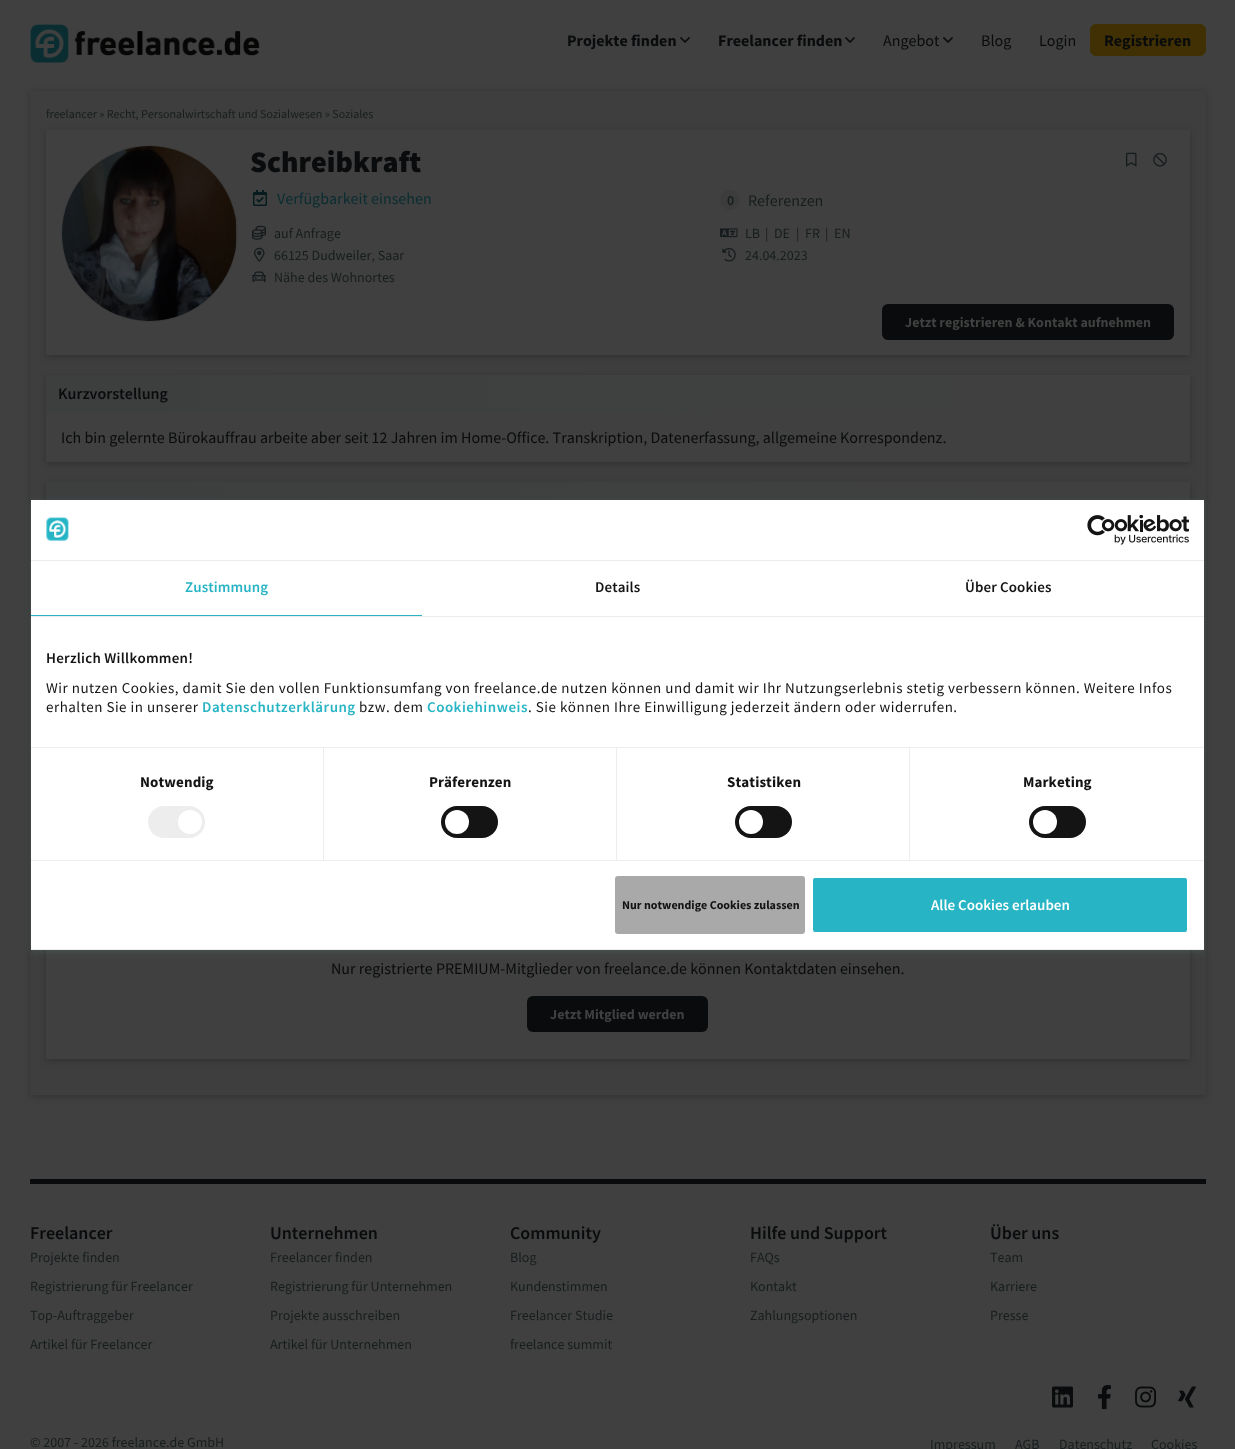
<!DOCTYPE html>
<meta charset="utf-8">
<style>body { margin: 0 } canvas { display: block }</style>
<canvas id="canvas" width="1235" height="1449"></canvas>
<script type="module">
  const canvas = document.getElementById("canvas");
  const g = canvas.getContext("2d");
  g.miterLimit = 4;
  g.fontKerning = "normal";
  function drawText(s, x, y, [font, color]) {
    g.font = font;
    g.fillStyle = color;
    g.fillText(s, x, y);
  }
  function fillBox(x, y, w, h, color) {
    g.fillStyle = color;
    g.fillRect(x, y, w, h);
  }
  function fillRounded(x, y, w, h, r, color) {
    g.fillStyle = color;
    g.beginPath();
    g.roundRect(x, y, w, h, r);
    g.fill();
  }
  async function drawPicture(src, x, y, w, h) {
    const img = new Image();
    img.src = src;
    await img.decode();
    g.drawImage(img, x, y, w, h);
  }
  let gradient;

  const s1 = ["bold 16px Source Sans Pro", "#090B0C"];
  const s2 = ["16px Source Sans Pro", "#090B0C"];
  const s3 = ["12px Source Sans Pro", "#171D1D"];
  const s4 = ["900 30px Source Sans Pro", "#090B0C"];
  const s5 = ["16px Source Sans Pro", "#0A2D31"];
  const s6 = ["600 14px Source Sans Pro", "#171D1D"];
  const s7 = ["16px Source Sans Pro", "#171D1D"];
  const s8 = ["14px Source Sans Pro", "#171D1D"];
  const s9 = ["bold 14px Source Sans Pro", "#404040"];
  const s10 = ["600 16px Source Sans Pro", "#090B0C"];
  const s11 = ["600 15px Source Sans Pro", "#27B4C4"];
  const s12 = ["600 15px Source Sans Pro", "#141414"];
  const s13 = ["15px Source Sans Pro", "#141414"];
  const s14 = ["bold 15px Source Sans Pro", "#141414"];
  const s15 = ["bold 12px Source Sans Pro", "#141414"];
  const s16 = ["600 15px Source Sans Pro", "#FFFFFF"];
  const s17 = ["600 18px Source Sans Pro", "#090B0C"];

  fillBox(0, 0, 1235, 1449, "#404040");
  await drawPicture("pic1.png", 30, 24, 230, 39);
  drawText("Projekte finden", 567, 46, s1);
  await drawPicture("pic2.png", 680, 37, 10, 6);
  drawText("Freelancer finden", 718, 46, s1);
  await drawPicture("pic2.png", 845, 37, 10, 6);
  drawText("Angebot", 883, 46, s2);
  await drawPicture("pic2.png", 943, 37, 10, 6);
  drawText("Blog", 981, 46, s2);
  drawText("Login", 1039, 46, s2);
  g.fillStyle = "#403003";
  g.beginPath();
  g.roundRect(1091, 25, 114, 30, 5);
  g.fill();
  g.strokeStyle = "#403003";
  g.lineWidth = 2;
  g.stroke();
  drawText("Registrieren", 1104, 46, s1);
  g.fillStyle = "rgba(23, 29, 29, 0.35)";
  g.filter = "blur(3px)";
  g.beginPath();
  g.rect(30, 92, 1176, 1005);
  g.fill();
  g.filter = "none";
  fillBox(30, 91, 1176, 1004, "#3E3E3E");
  drawText("freelancer » Recht, Personalwirtschaft und Sozialwesen » Soziales", 46, 118, s3);
  g.fillStyle = "rgba(23, 29, 29, 0.35)";
  g.filter = "blur(3px)";
  g.beginPath();
  g.rect(46, 132, 1144, 225);
  g.fill();
  g.filter = "none";
  fillBox(46, 130, 1144, 225, "#404040");
  g.beginPath();
  g.arc(149.5, 233.5, 88, 0, Math.PI * 2);
  g.strokeStyle = "#3C3C3C";
  g.lineWidth = 1;
  g.stroke();
  await drawPicture("pic3.png", 62, 146, 175, 175);
  drawText("Schreibkraft", 250, 172, s4);
  await drawPicture("pic4.png", 253, 190, 14, 16);
  drawText("Verfügbarkeit einsehen", 277, 204, s5);
  g.fillStyle = "#3C3C3C";
  g.beginPath();
  g.arc(730, 200, 10, 0, Math.PI * 2);
  g.fill();
  drawText("0", 727, 205, s6);
  drawText("Referenzen", 748, 206, s7);
  await drawPicture("pic5.png", 252, 225, 14, 15);
  drawText("auf Anfrage", 274, 238, s8);
  await drawPicture("pic6.png", 720, 228, 18, 10);
  drawText("LB", 745, 238, s8);
  drawText("|", 765, 238, s8);
  drawText("DE", 774, 238, s8);
  drawText("|", 796, 238, s8);
  drawText("FR", 805, 238, s8);
  drawText("|", 825, 238, s8);
  drawText("EN", 834, 238, s8);
  await drawPicture("pic7.png", 254, 247, 11, 15);
  drawText("66125 Dudweiler, Saar", 274, 260, s8);
  await drawPicture("pic8.png", 722, 248, 14, 14);
  drawText("24.04.2023", 745, 260, s8);
  await drawPicture("pic9.png", 252, 271, 14, 11);
  drawText("Nähe des Wohnortes", 274, 282, s8);
  fillRounded(882, 304, 292, 36, 6, "#090B0C");
  drawText("Jetzt registrieren & Kontakt aufnehmen", 905, 327, s9);
  await drawPicture("pic10.png", 1126, 152, 11, 15);
  await drawPicture("pic11.png", 1153, 153, 14, 14);
  g.fillStyle = "rgba(23, 29, 29, 0.35)";
  g.filter = "blur(3px)";
  g.beginPath();
  g.rect(46, 377, 1144, 87);
  g.fill();
  g.filter = "none";
  fillBox(46, 412, 1144, 50, "#404040");
  gradient = g.createLinearGradient(46, 394, 1190, 393);
  gradient.addColorStop(0, "#3D3F3F");
  gradient.addColorStop(1, "#404040");
  g.fillStyle = gradient;
  g.fillRect(46, 375, 1144, 37);
  drawText("Kurzvorstellung", 58, 399, s10);
  drawText("Ich bin gelernte Bürokauffrau arbeite aber seit 12 Jahren im Home-Office. Transkription, Datenerfassung, allgemeine Korrespondenz.", 61, 443, s2);
  g.fillStyle = "rgba(23, 29, 29, 0.35)";
  g.filter = "blur(3px)";
  g.beginPath();
  g.rect(46, 484, 1144, 100);
  g.fill();
  g.filter = "none";
  gradient = g.createLinearGradient(46, 501, 1190, 500);
  gradient.addColorStop(0, "#3D3F3F");
  gradient.addColorStop(1, "#404040");
  g.fillStyle = gradient;
  g.fillRect(46, 482, 1144, 18);
  g.fillStyle = "rgba(23, 29, 29, 0.35)";
  g.filter = "blur(3px)";
  g.beginPath();
  g.rect(46, 896, 1144, 165);
  g.fill();
  g.filter = "none";
  fillBox(46, 950, 1144, 109, "#404040");
  drawText("Nur registrierte PREMIUM-Mitglieder von freelance.de können Kontaktdaten einsehen.", 331, 974, s2);
  fillRounded(527, 996, 181, 36, 6, "#090B0C");
  drawText("Jetzt Mitglied werden", 550, 1019, s9);
  g.fillStyle = "rgba(90, 114, 115, 0.35)";
  g.filter = "blur(3px)";
  g.beginPath();
  g.rect(31, 502, 1173, 450);
  g.fill();
  g.filter = "none";
  fillBox(31, 500, 1173, 449, "#FFFFFF");
  fillBox(31, 560, 1173, 1, "#EDEDED");
  await drawPicture("pic12.png", 46, 517, 23, 24);
  await drawPicture("pic13.png", 1087, 515, 102, 30);
  fillBox(31, 616, 1173, 1, "#EDEDED");
  fillBox(31, 615, 391, 1, "#27B4C4");
  g.letterSpacing = "0.1px";
  drawText("Zustimmung", 185, 592, s11);
  drawText("Details", 595, 592, s12);
  drawText("Über Cookies", 965, 592, s12);
  fillBox(31, 747, 1173, 1, "#EDEDED");
  g.letterSpacing = "0.25px";
  drawText("Herzlich Willkommen!", 46, 663, s12);
  g.letterSpacing = "0.5px";
  drawText("Wir nutzen Cookies, damit Sie den vollen Funktionsumfang von freelance.de nutzen können und damit wir Ihr Nutzungserlebnis stetig verbessern können. Weitere Infos", 46, 693, s13);
  drawText("erhalten Sie in unserer", 46, 712, s13);
  drawText("Datenschutzerklärung", 202, 712, s11);
  drawText("bzw. dem", 359, 712, s13);
  drawText("Cookiehinweis", 427, 712, s11);
  drawText(". Sie können Ihre Einwilligung jederzeit ändern oder widerrufen.", 528, 712, s13);
  fillBox(31, 860, 1173, 1, "#EDEDED");
  fillBox(323, 748, 1, 112, "#EDEDED");
  g.letterSpacing = "0.1px";
  drawText("Notwendig", 140, 787, s14);
  fillRounded(148, 806, 57, 32, 16, "#EDEDED");
  g.fillStyle = "#FFFFFF";
  g.beginPath();
  g.arc(190, 822, 12, 0, Math.PI * 2);
  g.fill();
  fillBox(616, 748, 1, 112, "#EDEDED");
  drawText("Präferenzen", 429, 787, s14);
  fillRounded(441, 806, 57, 32, 16, "#141414");
  g.fillStyle = "#FFFFFF";
  g.beginPath();
  g.arc(457, 822, 12, 0, Math.PI * 2);
  g.fill();
  fillBox(909, 748, 1, 112, "#EDEDED");
  drawText("Statistiken", 727, 787, s14);
  fillRounded(735, 806, 57, 32, 16, "#141414");
  g.fillStyle = "#FFFFFF";
  g.beginPath();
  g.arc(751, 822, 12, 0, Math.PI * 2);
  g.fill();
  drawText("Marketing", 1023, 787, s14);
  fillRounded(1029, 806, 57, 32, 16, "#141414");
  g.fillStyle = "#FFFFFF";
  g.beginPath();
  g.arc(1045, 822, 12, 0, Math.PI * 2);
  g.fill();
  fillBox(31, 949, 1173, 1, "#EDEDED");
  fillRounded(615, 876, 190, 58, 3, "#A9A9A9");
  g.letterSpacing = "0px";
  drawText("Nur notwendige Cookies zulassen", 622, 909, s15);
  g.fillStyle = "#27B4C4";
  g.beginPath();
  g.roundRect(812, 877, 376, 56, 3);
  g.fill();
  g.strokeStyle = "#FFFFFF";
  g.lineWidth = 2;
  g.stroke();
  drawText("Alle Cookies erlauben", 931, 910, s16);
  fillBox(30, 1179, 1176, 5, "#090B0C");
  drawText("Freelancer", 30, 1239, s17);
  drawText("Projekte finden", 30, 1262, s8);
  drawText("Registrierung für Freelancer", 30, 1291, s8);
  drawText("Top-Auftraggeber", 30, 1320, s8);
  drawText("Artikel für Freelancer", 30, 1349, s8);
  drawText("Unternehmen", 270, 1239, s17);
  drawText("Freelancer finden", 270, 1262, s8);
  drawText("Registrierung für Unternehmen", 270, 1291, s8);
  drawText("Projekte ausschreiben", 270, 1320, s8);
  drawText("Artikel für Unternehmen", 270, 1349, s8);
  drawText("Community", 510, 1239, s17);
  drawText("Blog", 510, 1262, s8);
  drawText("Kundenstimmen", 510, 1291, s8);
  drawText("Freelancer Studie", 510, 1320, s8);
  drawText("freelance summit", 510, 1349, s8);
  drawText("Hilfe und Support", 750, 1239, s17);
  drawText("FAQs", 750, 1262, s8);
  drawText("Kontakt", 750, 1291, s8);
  drawText("Zahlungsoptionen", 750, 1320, s8);
  drawText("Über uns", 990, 1239, s17);
  drawText("Team", 990, 1262, s8);
  drawText("Karriere", 990, 1291, s8);
  drawText("Presse", 990, 1320, s8);
  await drawPicture("pic14.png", 1052, 1386, 21, 22);
  await drawPicture("pic15.png", 1098, 1385, 13, 24);
  await drawPicture("pic16.png", 1135, 1386, 22, 22);
  await drawPicture("pic17.png", 1178, 1386, 18, 22);
  drawText("© 2007 - 2026 freelance.de GmbH", 30, 1447, s8);
  drawText("Impressum", 930, 1449, s8);
  drawText("AGB", 1015, 1449, s8);
  drawText("Datenschutz", 1059, 1449, s8);
  drawText("Cookies", 1151, 1449, s8);
</script>
